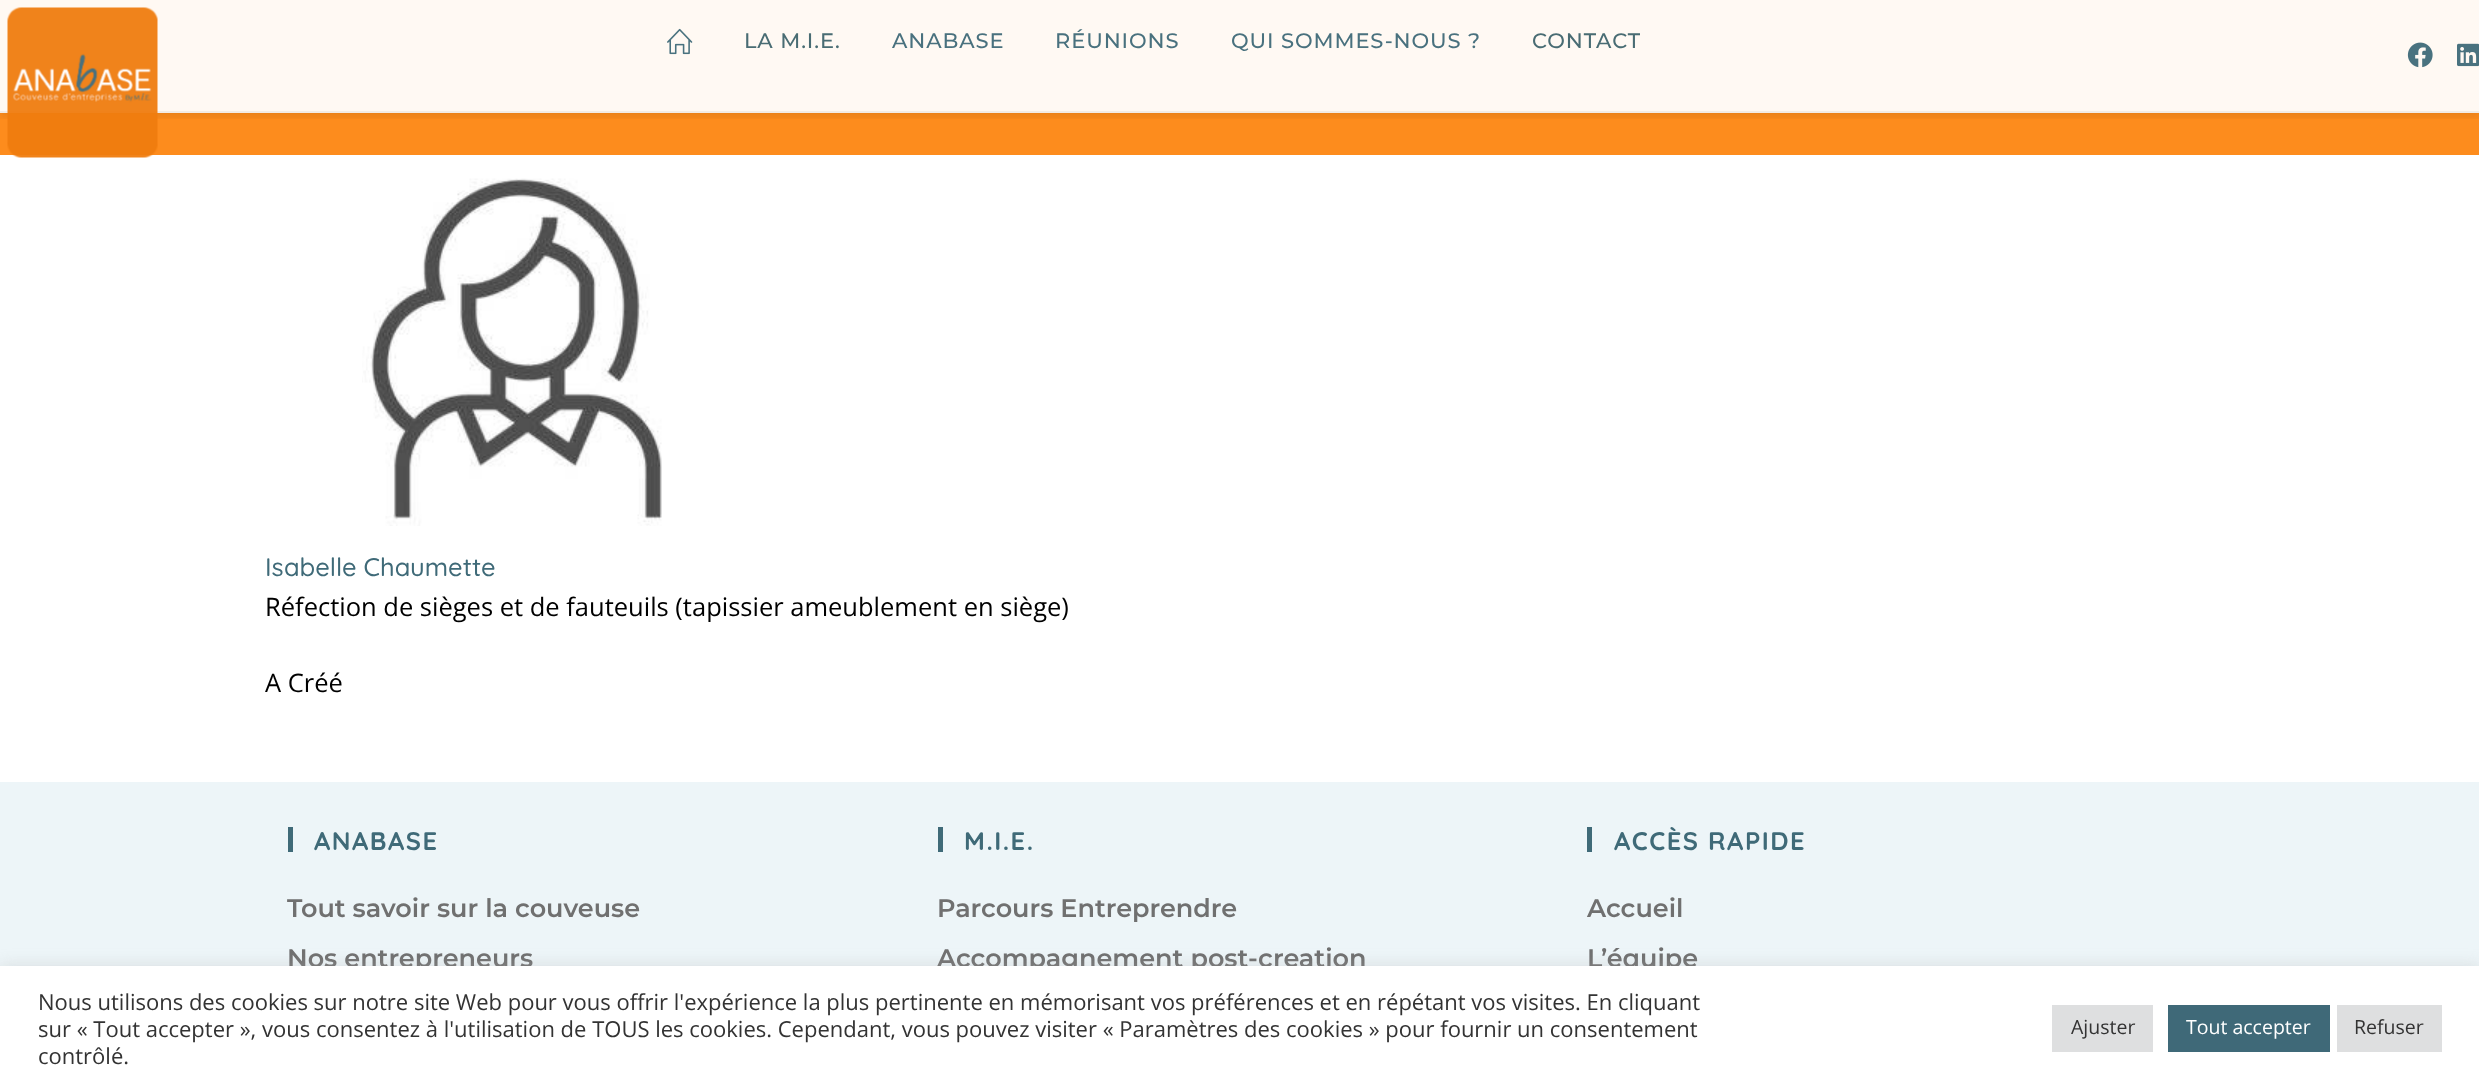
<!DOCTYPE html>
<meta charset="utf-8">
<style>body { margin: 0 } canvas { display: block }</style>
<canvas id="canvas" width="2479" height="1088"></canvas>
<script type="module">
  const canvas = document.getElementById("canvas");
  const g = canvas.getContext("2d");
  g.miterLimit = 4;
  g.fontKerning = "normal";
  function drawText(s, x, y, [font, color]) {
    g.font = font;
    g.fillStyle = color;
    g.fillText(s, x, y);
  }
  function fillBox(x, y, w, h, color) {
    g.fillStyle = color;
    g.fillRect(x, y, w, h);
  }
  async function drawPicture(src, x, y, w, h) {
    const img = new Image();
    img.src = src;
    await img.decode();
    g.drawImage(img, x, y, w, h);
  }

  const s1 = ["500 21px Montserrat", "#496C73"];
  const s2 = ["500 21px Montserrat", "#49717E"];
  const s3 = ["500 25.5px Quicksand", "#3F6A78"];
  const s4 = ["25.5px Open Sans", "#000000"];
  const s5 = ["bold 25.5px Quicksand", "#3F6A78"];
  const s6 = ["600 25.5px Montserrat", "#707070"];
  const s7 = ["22px Open Sans", "#333333"];
  const s8 = ["19.5px Open Sans", "#333333"];
  const s9 = ["19.5px Open Sans", "#FFFFFF"];

  fillBox(0, 0, 2479, 1088, "#FFFFFF");
  fillBox(0, 0, 2479, 155, "#FD8C1D");
  g.save();
  g.beginPath();
  g.rect(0, 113, 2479, 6);
  g.clip();
  g.fillStyle = "rgba(13, 7, 1, 0.1)";
  g.filter = "blur(4px)";
  g.beginPath();
  g.rect(0, 3, 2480, 113);
  g.fill();
  g.filter = "none";
  g.restore();
  fillBox(0, 0, 2479, 111, "rgba(255, 255, 255, 0.95)");
  fillBox(0, 111, 2479, 2, "#F2ECE6");
  await drawPicture("pic1.png", 7, 7, 151, 151);
  await drawPicture("pic2.png", 667, 28, 26, 27);
  g.letterSpacing = "0.9px";
  drawText("LA M.I.E.", 744, 48, s1);
  drawText("ANABASE", 892, 48, s2);
  drawText("RÉUNIONS", 1055, 48, s2);
  drawText("QUI SOMMES-NOUS ?", 1231, 48, s2);
  drawText("CONTACT", 1532, 48, s1);
  await drawPicture("pic3.png", 2407, 42, 26, 26);
  await drawPicture("pic4.png", 2457, 43, 22, 24);
  await drawPicture("pic5.png", 362, 178, 300, 348);
  g.letterSpacing = "0px";
  drawText("Isabelle Chaumette", 265, 576, s3);
  drawText("Réfection de sièges et de fauteuils (tapissier ameublement en siège)", 265, 616, s4);
  drawText("A Créé", 265, 692, s4);
  fillBox(0, 782, 2479, 184, "#EDF5F8");
  fillBox(288, 827, 5, 25, "#3F6A78");
  g.letterSpacing = "1.5px";
  drawText("ANABASE", 314, 850, s5);
  g.letterSpacing = "0px";
  drawText("Tout savoir sur la couveuse", 287, 917, s6);
  drawText("Nos entrepreneurs", 287, 967, s6);
  fillBox(938, 827, 5, 25, "#3F6A78");
  g.letterSpacing = "1.5px";
  drawText("M.I.E.", 964, 850, s5);
  g.letterSpacing = "0px";
  drawText("Parcours Entreprendre", 937, 917, s6);
  drawText("Accompagnement post-creation", 937, 967, s6);
  fillBox(1587, 827, 5, 25, "#3F6A78");
  g.letterSpacing = "1.5px";
  drawText("ACCÈS RAPIDE", 1614, 850, s5);
  g.letterSpacing = "0px";
  drawText("Accueil", 1587, 917, s6);
  drawText("L’équipe", 1587, 967, s6);
  g.fillStyle = "rgba(172, 171, 171, 0.3)";
  g.filter = "blur(7.5px)";
  g.beginPath();
  g.rect(0, 965, 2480, 123);
  g.fill();
  g.filter = "none";
  fillBox(0, 966, 2479, 122, "#FFFFFF");
  drawText("Nous utilisons des cookies sur notre site Web pour vous offrir l'expérience la plus pertinente en mémorisant vos préférences et en répétant vos visites. En cliquant", 38, 1010, s7);
  drawText("sur « Tout accepter », vous consentez à l'utilisation de TOUS les cookies. Cependant, vous pouvez visiter « Paramètres des cookies » pour fournir un consentement", 38, 1037, s7);
  drawText("contrôlé.", 38, 1064, s7);
  fillBox(2052, 1005, 101, 47, "#DEDFE0");
  drawText("Ajuster", 2071, 1034, s8);
  fillBox(2168, 1005, 162, 47, "#3F6978");
  drawText("Tout accepter", 2186, 1034, s9);
  fillBox(2337, 1005, 105, 47, "#DEDFE0");
  drawText("Refuser", 2354, 1034, s8);
</script>
